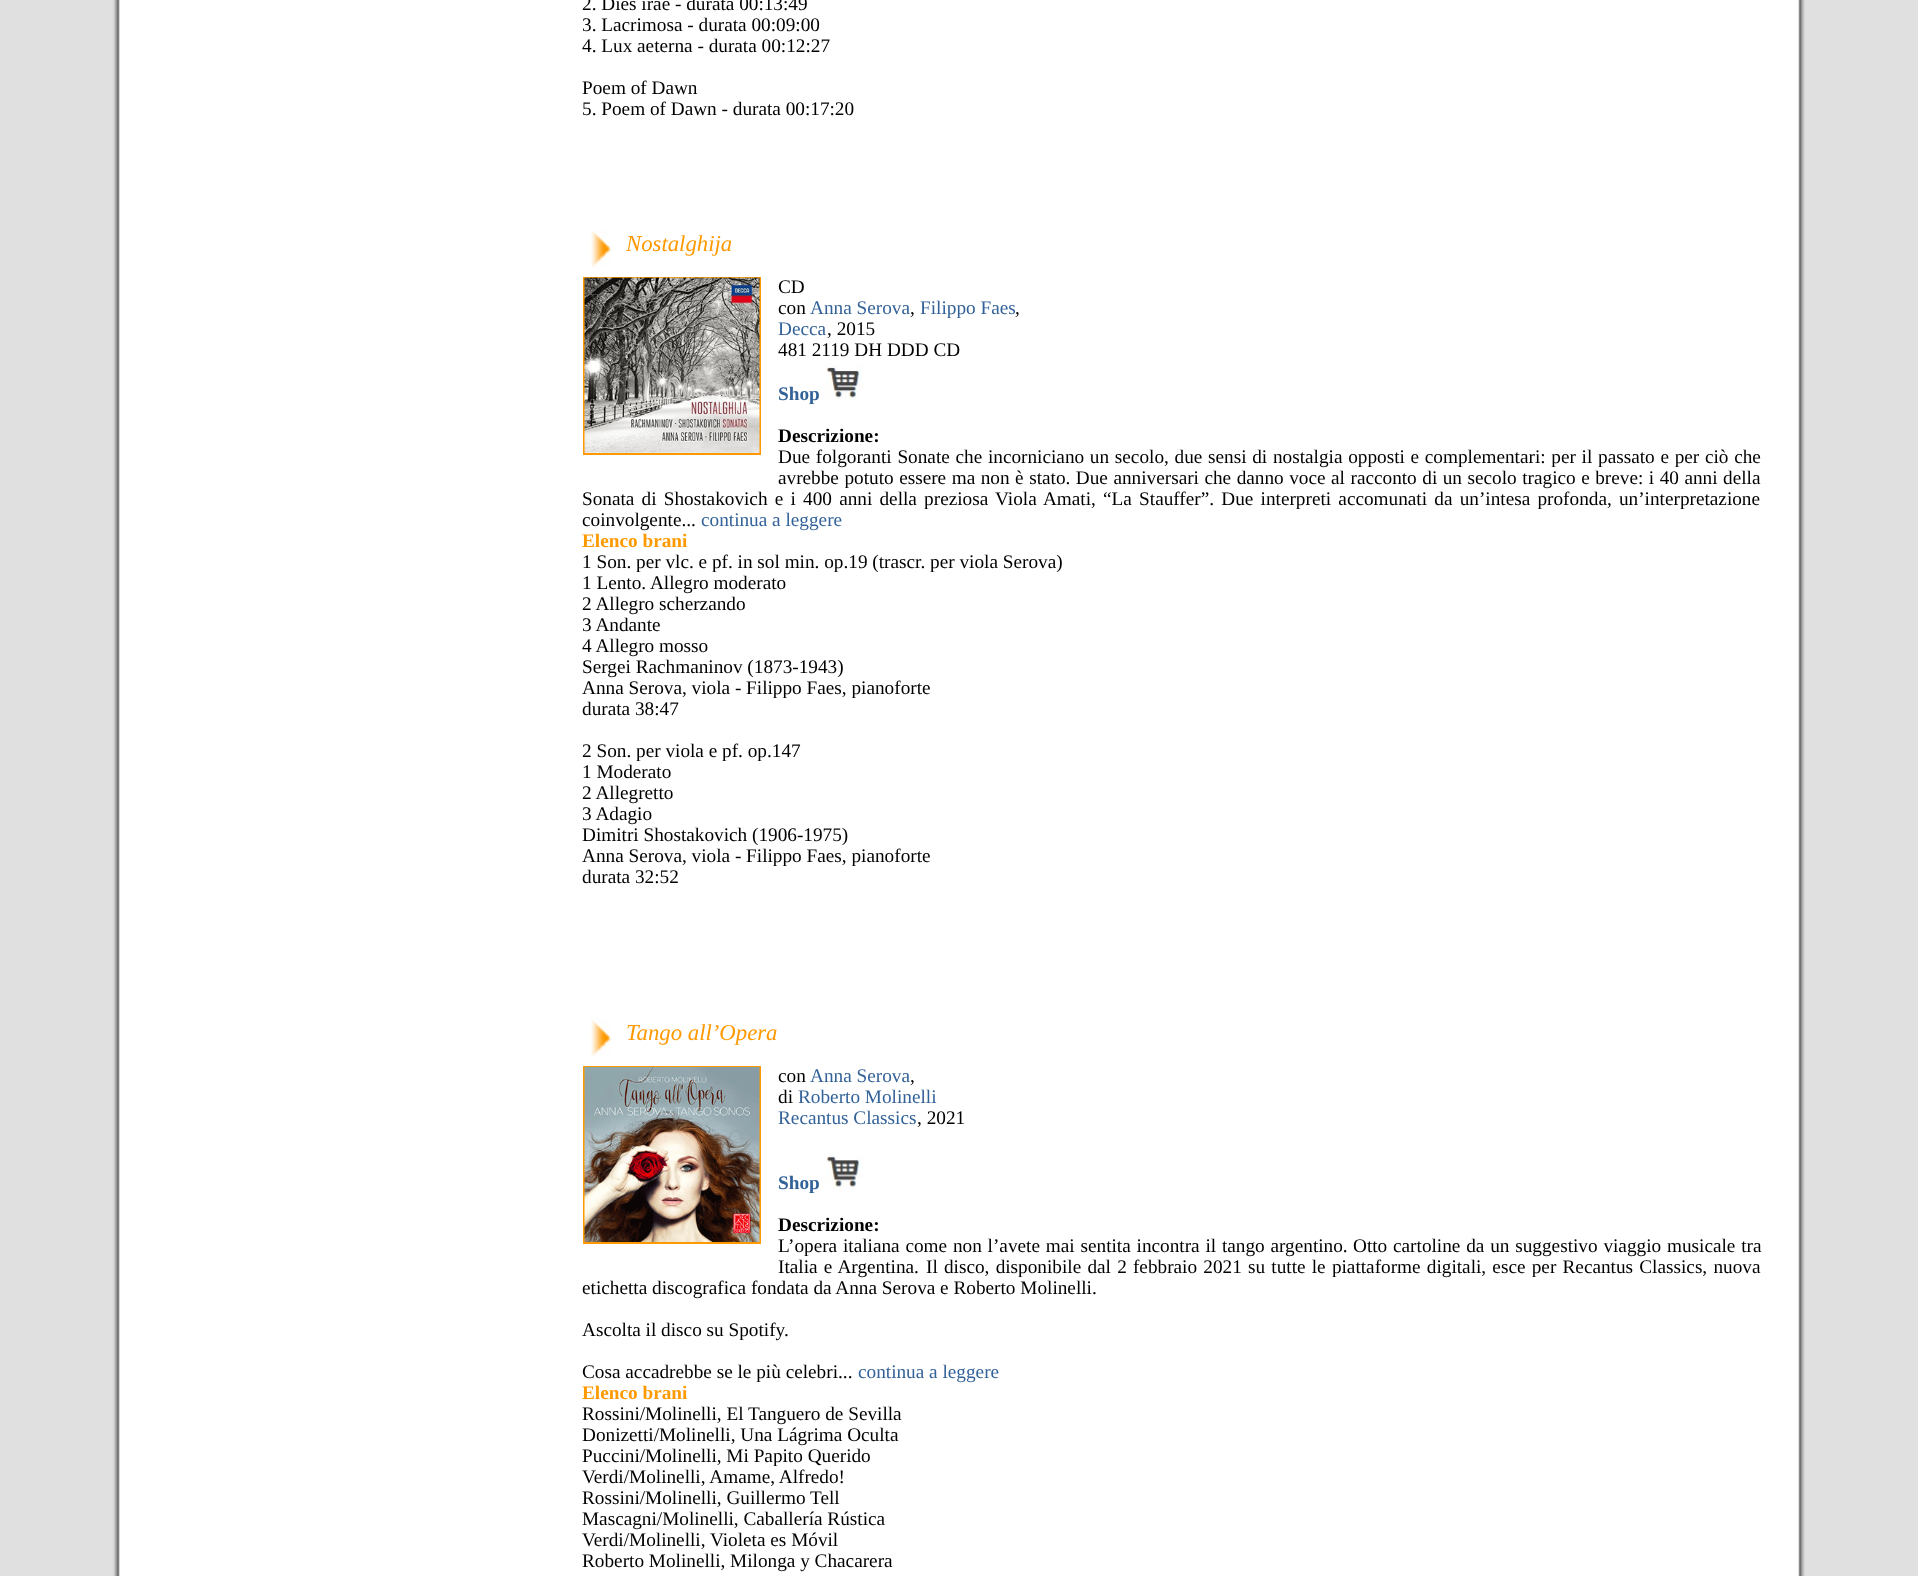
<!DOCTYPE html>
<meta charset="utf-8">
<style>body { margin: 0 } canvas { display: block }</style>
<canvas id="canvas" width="1918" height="1576"></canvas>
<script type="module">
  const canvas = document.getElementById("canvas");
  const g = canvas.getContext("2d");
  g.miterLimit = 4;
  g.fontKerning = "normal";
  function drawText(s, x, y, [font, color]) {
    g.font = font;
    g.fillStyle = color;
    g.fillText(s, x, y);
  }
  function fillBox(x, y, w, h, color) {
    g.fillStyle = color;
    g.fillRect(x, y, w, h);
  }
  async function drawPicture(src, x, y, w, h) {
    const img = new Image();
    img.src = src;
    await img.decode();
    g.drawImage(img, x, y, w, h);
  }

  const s1 = ["19.25px Liberation Serif", "#000000"];
  const s2 = ["italic 22.75px Liberation Serif", "#FF9900"];
  const s3 = ["19.25px Liberation Serif", "#336299"];
  const s4 = ["bold 19.25px Liberation Serif", "#336299"];
  const s5 = ["bold 19.25px Liberation Serif", "#000000"];
  const s6 = ["bold 19.25px Liberation Serif", "#FF9900"];

  fillBox(0, 0, 1918, 1576, "#E0E0E0");
  await drawPicture("pic1.png", 113, 0, 1692, 1576);
  drawText("2. Dies irae - durata 00:13:49", 582, 10, s1);
  drawText("3. Lacrimosa - durata 00:09:00", 582, 31, s1);
  drawText("4. Lux aeterna - durata 00:12:27", 582, 52, s1);
  drawText("Poem of Dawn", 582, 94, s1);
  drawText("5. Poem of Dawn - durata 00:17:20", 582, 115, s1);
  await drawPicture("pic2.png", 591, 230, 21, 38);
  drawText("Nostalghija", 626, 251, s2);
  g.strokeStyle = "#FF9900";
  g.lineWidth = 2;
  g.strokeRect(584, 278, 176, 176);
  await drawPicture("pic3.png", 584, 277, 176, 176);
  drawText("CD", 778, 293, s1);
  drawText("con", 778, 314, s1);
  drawText("Anna Serova", 810, 314, s3);
  drawText(",", 910, 314, s1);
  drawText("Filippo Faes", 920, 314, s3);
  drawText(",", 1015, 314, s1);
  drawText("Decca", 778, 335, s3);
  drawText(", 2015", 827, 335, s1);
  drawText("481 2119 DH DDD CD", 778, 356, s1);
  drawText("Shop", 778, 400, s4);
  await drawPicture("pic4.png", 824, 364, 40, 36);
  drawText("Descrizione:", 778, 442, s5);
  g.wordSpacing = "0.9px";
  drawText("Due folgoranti Sonate che incorniciano un secolo, due sensi di nostalgia opposti e complementari: per il passato e per ciò che", 778, 463, s1);
  g.wordSpacing = "0.7px";
  drawText("avrebbe potuto essere ma non è stato. Due anniversari che danno voce al racconto di un secolo tragico e breve: i 40 anni della", 778, 484, s1);
  g.wordSpacing = "2.4px";
  drawText("Sonata di Shostakovich e i 400 anni della preziosa Viola Amati, “La Stauffer”. Due interpreti accomunati da un’intesa profonda, un’interpretazione", 582, 505, s1);
  g.wordSpacing = "0px";
  drawText("coinvolgente...", 582, 526, s1);
  drawText("continua a leggere", 701, 526, s3);
  drawText("Elenco brani", 582, 547, s6);
  drawText("1 Son. per vlc. e pf. in sol min. op.19 (trascr. per viola Serova)", 582, 568, s1);
  drawText("1 Lento. Allegro moderato", 582, 589, s1);
  drawText("2 Allegro scherzando", 582, 610, s1);
  drawText("3 Andante", 582, 631, s1);
  drawText("4 Allegro mosso", 582, 652, s1);
  drawText("Sergei Rachmaninov (1873-1943)", 582, 673, s1);
  drawText("Anna Serova, viola - Filippo Faes, pianoforte", 582, 694, s1);
  drawText("durata 38:47", 582, 715, s1);
  drawText("2 Son. per viola e pf. op.147", 582, 757, s1);
  drawText("1 Moderato", 582, 778, s1);
  drawText("2 Allegretto", 582, 799, s1);
  drawText("3 Adagio", 582, 820, s1);
  drawText("Dimitri Shostakovich (1906-1975)", 582, 841, s1);
  drawText("Anna Serova, viola - Filippo Faes, pianoforte", 582, 862, s1);
  drawText("durata 32:52", 582, 883, s1);
  await drawPicture("pic5.png", 591, 1019, 21, 38);
  drawText("Tango all’Opera", 626, 1040, s2);
  g.strokeRect(584, 1067, 176, 176);
  await drawPicture("pic6.png", 584, 1067, 176, 175);
  drawText("con", 778, 1082, s1);
  drawText("Anna Serova", 810, 1082, s3);
  drawText(",", 910, 1082, s1);
  drawText("di", 778, 1103, s1);
  drawText("Roberto Molinelli", 798, 1103, s3);
  drawText("Recantus Classics", 778, 1124, s3);
  drawText(", 2021", 917, 1124, s1);
  drawText("Shop", 778, 1189, s4);
  await drawPicture("pic7.png", 824, 1154, 39, 36);
  drawText("Descrizione:", 778, 1231, s5);
  g.wordSpacing = "1px";
  drawText("L’opera italiana come non l’avete mai sentita incontra il tango argentino.", 778, 1252, s1);
  drawText("Otto cartoline da un suggestivo viaggio musicale tra", 1353, 1252, s1);
  g.wordSpacing = "1.4px";
  drawText("Italia e Argentina.", 778, 1273, s1);
  drawText("Il disco, disponibile dal 2 febbraio 2021 su tutte le piattaforme digitali, esce per Recantus Classics, nuova", 926, 1273, s1);
  g.wordSpacing = "0px";
  drawText("etichetta discografica fondata da Anna Serova e Roberto Molinelli.", 582, 1294, s1);
  drawText("Ascolta il disco su Spotify.", 582, 1336, s1);
  drawText("Cosa accadrebbe se le più celebri...", 582, 1378, s1);
  drawText("continua a leggere", 858, 1378, s3);
  drawText("Elenco brani", 582, 1399, s6);
  drawText("Rossini/Molinelli, El Tanguero de Sevilla", 582, 1420, s1);
  drawText("Donizetti/Molinelli, Una Lágrima Oculta", 582, 1441, s1);
  drawText("Puccini/Molinelli, Mi Papito Querido", 582, 1462, s1);
  drawText("Verdi/Molinelli, Amame, Alfredo!", 582, 1483, s1);
  drawText("Rossini/Molinelli, Guillermo Tell", 582, 1504, s1);
  drawText("Mascagni/Molinelli, Caballería Rústica", 582, 1525, s1);
  drawText("Verdi/Molinelli, Violeta es Móvil", 582, 1546, s1);
  drawText("Roberto Molinelli, Milonga y Chacarera", 582, 1567, s1);
</script>
